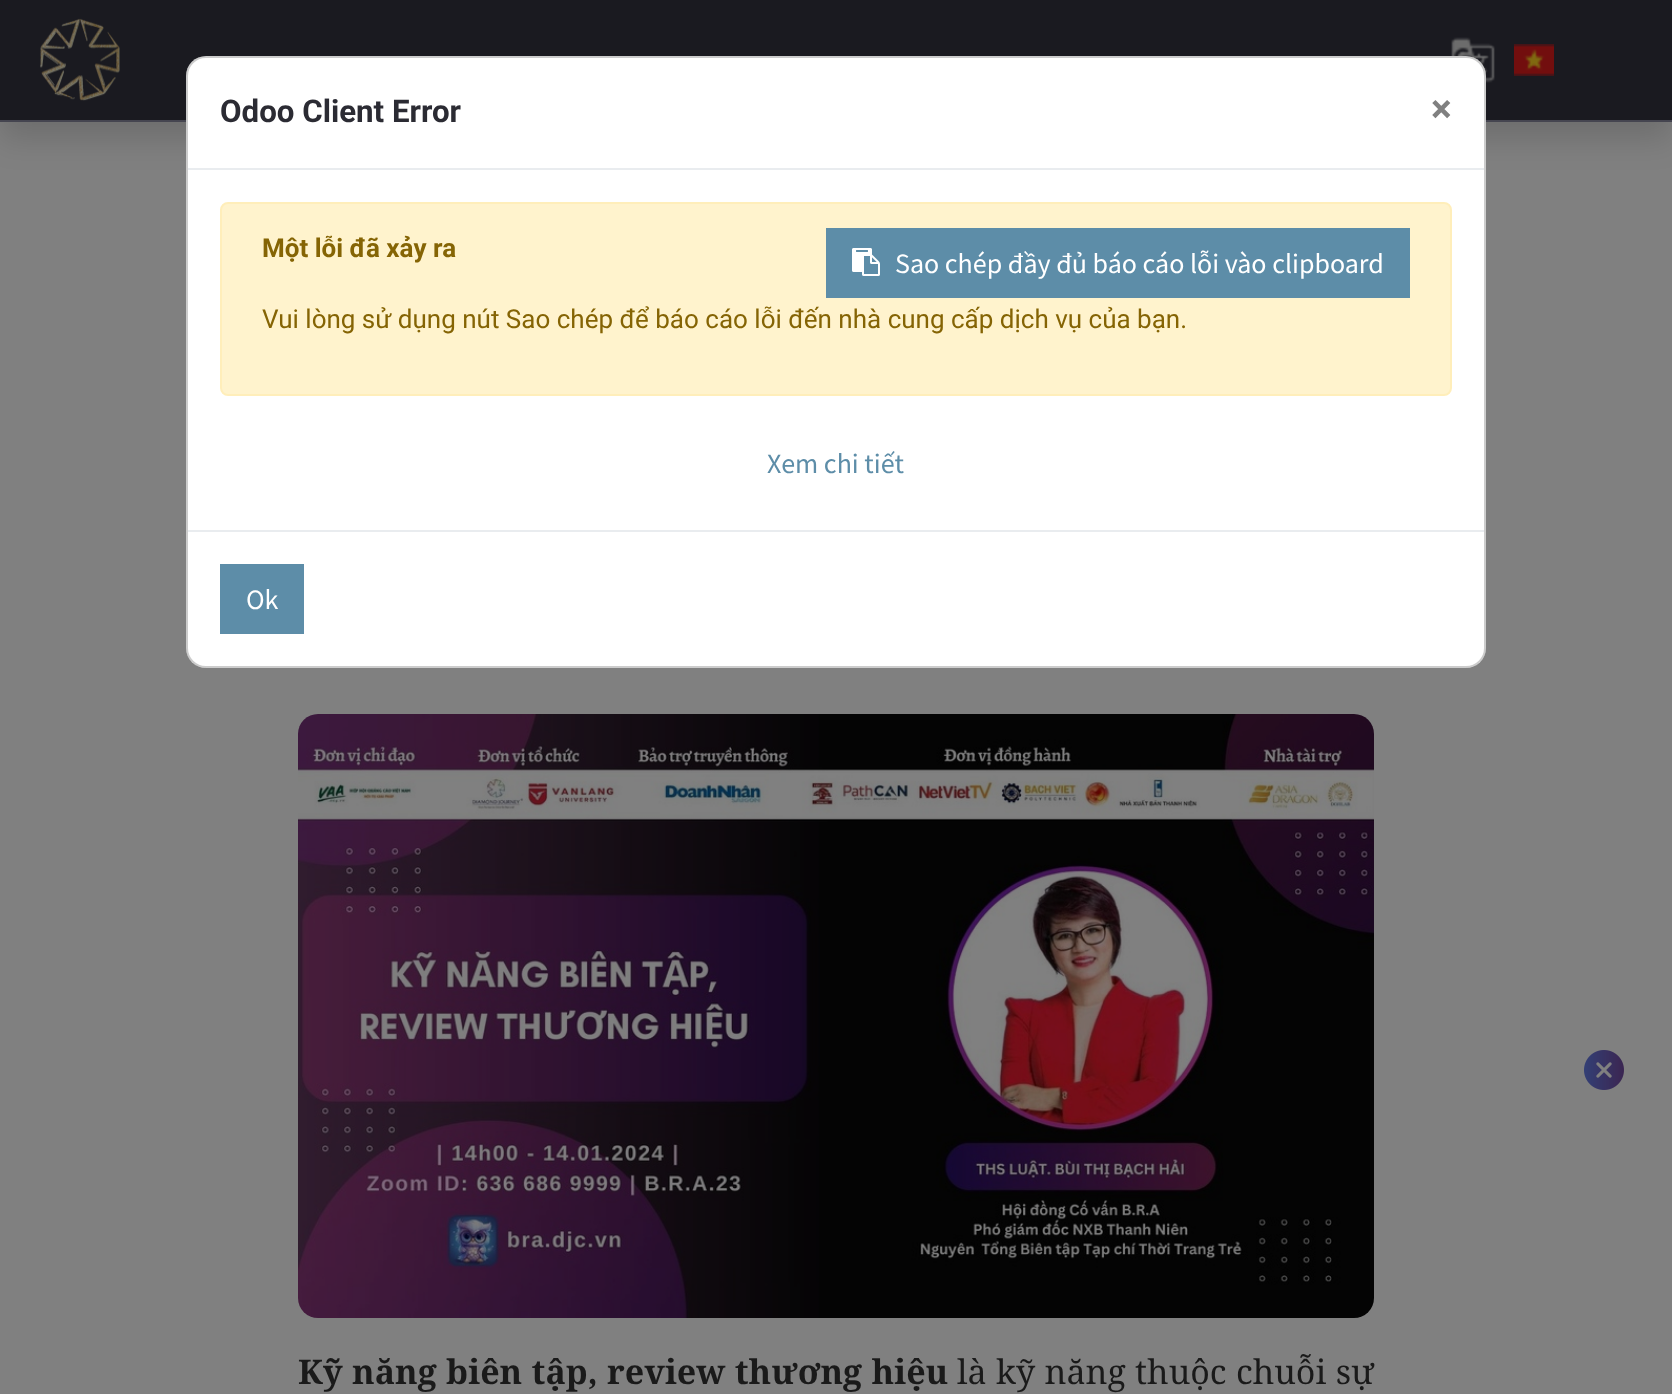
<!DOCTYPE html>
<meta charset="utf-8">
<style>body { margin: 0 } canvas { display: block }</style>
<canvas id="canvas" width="1672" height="1394"></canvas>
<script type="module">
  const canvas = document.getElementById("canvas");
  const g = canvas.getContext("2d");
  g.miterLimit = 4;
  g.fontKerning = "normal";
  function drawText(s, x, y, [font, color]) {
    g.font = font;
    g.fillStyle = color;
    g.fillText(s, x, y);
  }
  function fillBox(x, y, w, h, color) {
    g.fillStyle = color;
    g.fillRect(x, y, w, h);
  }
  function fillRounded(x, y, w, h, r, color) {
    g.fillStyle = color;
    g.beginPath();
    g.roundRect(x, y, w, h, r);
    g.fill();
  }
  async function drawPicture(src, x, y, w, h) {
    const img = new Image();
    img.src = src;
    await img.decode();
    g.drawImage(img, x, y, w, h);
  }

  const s1 = ["bold 31.25px Roboto", "#2B2B33"];
  const s2 = ["bold 39px Roboto", "#808080"];
  const s3 = ["bold 26px Roboto", "#856404"];
  const s4 = ["28px Source Sans Pro", "#FFFFFF"];
  const s5 = ["26px Roboto", "#856404"];
  const s6 = ["28px Source Sans Pro", "#5D8DA8"];
  const s7 = ["bold 34px Noto Serif", "#1A1A1A"];
  const s8 = ["34px Noto Serif", "#1A1A1A"];

  fillBox(0, 0, 1672, 1394, "#808080");
  g.fillStyle = "rgba(0, 0, 0, 0.15)";
  g.filter = "blur(16px)";
  g.beginPath();
  g.rect(0, 16, 1672, 122);
  g.fill();
  g.filter = "none";
  fillBox(0, 0, 1672, 120, "#1A1A20");
  fillBox(0, 120, 1672, 2, "#454550");
  await drawPicture("pic3.png", 1451, 37, 44, 46);
  fillRounded(186, 56, 1300, 612, 20, "#FFFFFF");
  g.beginPath();
  g.roundRect(187, 57, 1298, 610, 19);
  g.strokeStyle = "rgba(0, 0, 0, 0.2)";
  g.lineWidth = 2;
  g.stroke();
  fillBox(188, 168, 1296, 2, "#E9ECEF");
  drawText("Odoo Client Error", 220, 122, s1);
  drawText("×", 1431, 122, s2);
  g.fillStyle = "#FFF3CD";
  g.beginPath();
  g.roundRect(221, 203, 1230, 192, 7);
  g.fill();
  g.strokeStyle = "#FFEEBA";
  g.stroke();
  drawText("Một lỗi đã xảy ra", 262, 257, s3);
  fillBox(826, 228, 584, 70, "#5D8DA8");
  await drawPicture("pic1.png", 852, 248, 28, 28);
  drawText("Sao chép đầy đủ báo cáo lỗi vào clipboard", 895, 273, s4);
  drawText("Vui lòng sử dụng nút Sao chép để báo cáo lỗi đến nhà cung cấp dịch vụ của bạn.", 262, 328, s5);
  drawText("Xem chi tiết", 767, 473, s6);
  fillBox(188, 530, 1296, 2, "#E9ECEF");
  fillBox(220, 564, 84, 70, "#5D8DA8");
  drawText("Ok", 246, 609, s4);
  await drawPicture("pic2.png", 40, 18, 80, 83);
  await drawPicture("pic4.png", 1514, 44, 40, 32);
  await drawPicture("pic5.png", 1584, 1050, 40, 40);
  await drawPicture("pic6.png", 298, 714, 1076, 604);
  g.wordSpacing = "0.5px";
  drawText("Kỹ năng biên tập, review thương hiệu", 298, 1384, s7);
  drawText("là kỹ năng thuộc chuỗi sự", 957, 1384, s8);
</script>
